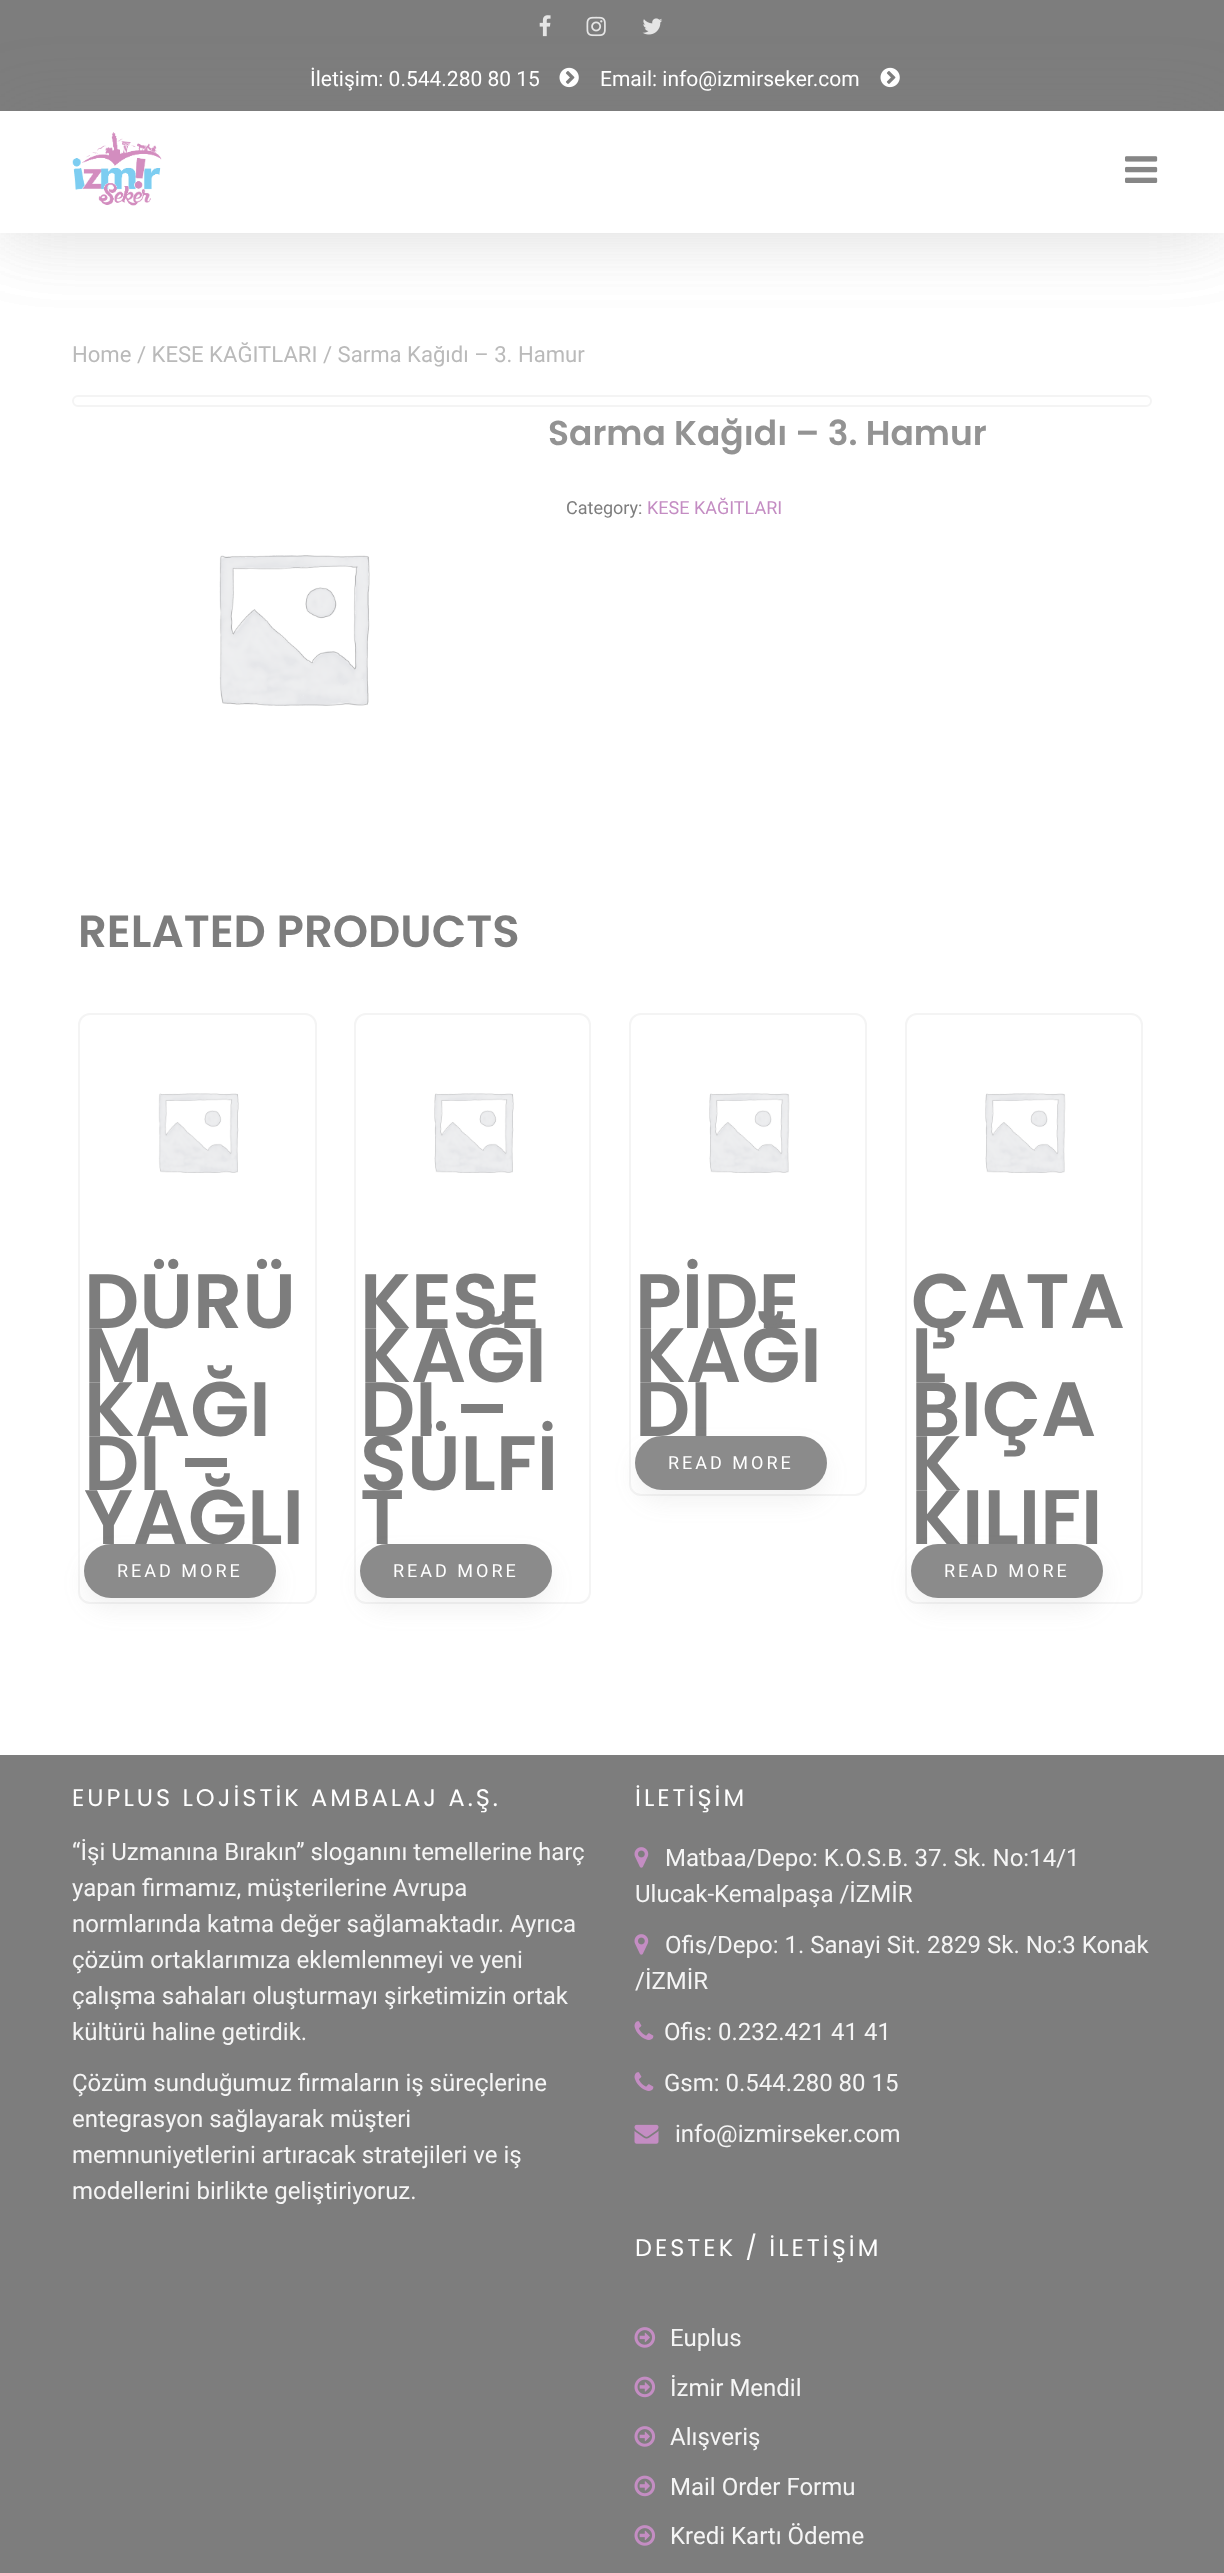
<!DOCTYPE html>
<meta charset="utf-8">
<style>body { margin: 0 } canvas { display: block }</style>
<canvas id="canvas" width="1224" height="2573"></canvas>
<script type="module">
  const canvas = document.getElementById("canvas");
  const g = canvas.getContext("2d");
  g.miterLimit = 4;
  g.fontKerning = "normal";
  function drawText(s, x, y, [font, color]) {
    g.font = font;
    g.fillStyle = color;
    g.fillText(s, x, y);
  }
  function fillBox(x, y, w, h, color) {
    g.fillStyle = color;
    g.fillRect(x, y, w, h);
  }
  function fillRounded(x, y, w, h, r, color) {
    g.fillStyle = color;
    g.beginPath();
    g.roundRect(x, y, w, h, r);
    g.fill();
  }
  async function drawPicture(src, x, y, w, h) {
    const img = new Image();
    img.src = src;
    await img.decode();
    g.drawImage(img, x, y, w, h);
  }

  const s1 = ["21px Roboto", "#FFFFFF"];
  const s2 = ["22.1px Roboto", "#BABABA"];
  const s3 = ["600 34.5px Poppins", "#939393"];
  const s4 = ["18px Roboto", "#7D7D7D"];
  const s5 = ["18px Roboto", "#C48DC3"];
  const s6 = ["600 45px Poppins", "#7D7D7D"];
  const s7 = ["600 77px Poppins", "#7D7D7D"];
  const s8 = ["18px Roboto", "#FFFFFF"];
  const s9 = ["24px Poppins", "#FFFFFF"];
  const s10 = ["24px Roboto", "#F5F5F5"];

  fillBox(0, 0, 1224, 2573, "#FFFFFF");
  g.fillStyle = "rgba(125, 125, 125, 0.15)";
  g.filter = "blur(37.5px)";
  g.beginPath();
  g.rect(0, 0, 1224, 233);
  g.fill();
  g.filter = "none";
  fillBox(0, 0, 1224, 111, "#7D7D7D");
  g.fillStyle = "rgba(125, 125, 125, 0.15)";
  g.filter = "blur(37.5px)";
  g.beginPath();
  g.rect(0, 111, 1224, 122);
  g.fill();
  g.filter = "none";
  fillBox(0, 111, 1224, 122, "#FFFFFF");
  await drawPicture("pic1.png", 72, 132, 90, 74);
  await drawPicture("pic2.png", 539, 15, 12, 22);
  await drawPicture("pic3.png", 586, 16, 20, 21);
  await drawPicture("pic4.png", 642, 18, 21, 17);
  drawText("İletişim: 0.544.280 80 15", 310, 86, s1);
  await drawPicture("pic5.png", 559, 67, 20, 21);
  drawText("Email: info@izmirseker.com", 600, 86, s1);
  await drawPicture("pic5.png", 880, 67, 20, 21);
  await drawPicture("pic6.png", 1125, 156, 33, 27);
  drawText("Home / KESE KAĞITLARI / Sarma Kağıdı – 3. Hamur", 72, 362, s2);
  g.beginPath();
  g.roundRect(73, 396, 1078, 10, 5);
  g.strokeStyle = "#F4F4F4";
  g.lineWidth = 2;
  g.stroke();
  drawText("Sarma Kağıdı – 3. Hamur", 548, 445, s3);
  drawText("Category:", 566, 514, s4);
  drawText("KESE KAĞITLARI", 647, 514, s5);
  await drawPicture("pic7.png", 219, 555, 151, 151);
  drawText("RELATED PRODUCTS", 78, 947, s6);
  g.beginPath();
  g.roundRect(79, 1014, 237, 589, 11);
  g.stroke();
  await drawPicture("pic8.png", 158, 1093, 81, 80);
  drawText("DÜRÜ", 84, 1328, s7);
  drawText("M", 84, 1382, s7);
  drawText("KAĞI", 84, 1436, s7);
  drawText("DI –", 84, 1490, s7);
  drawText("YAĞLI", 84, 1544, s7);
  g.fillStyle = "rgba(125, 125, 125, 0.1)";
  g.filter = "blur(11px)";
  g.beginPath();
  g.roundRect(84, 1556, 192, 54, 27);
  g.fill();
  g.filter = "none";
  fillRounded(84, 1544, 192, 54, 27, "#8B8B8B");
  g.letterSpacing = "3px";
  drawText("READ MORE", 117, 1577, s8);
  g.beginPath();
  g.roundRect(355, 1014, 235, 589, 11);
  g.stroke();
  await drawPicture("pic9.png", 434, 1093, 80, 80);
  g.letterSpacing = "0px";
  drawText("KESE", 360, 1328, s7);
  drawText("KAĞI", 360, 1382, s7);
  drawText("DI –", 360, 1436, s7);
  drawText("SÜLFİ", 360, 1490, s7);
  drawText("T", 360, 1544, s7);
  g.fillStyle = "rgba(125, 125, 125, 0.1)";
  g.filter = "blur(11px)";
  g.beginPath();
  g.roundRect(360, 1556, 192, 54, 27);
  g.fill();
  g.filter = "none";
  fillRounded(360, 1544, 192, 54, 27, "#8B8B8B");
  g.letterSpacing = "3px";
  drawText("READ MORE", 393, 1577, s8);
  g.beginPath();
  g.roundRect(630, 1014, 236, 481, 11);
  g.stroke();
  await drawPicture("pic10.png", 709, 1093, 81, 80);
  g.letterSpacing = "0px";
  drawText("PİDE", 635, 1328, s7);
  drawText("KAĞI", 635, 1382, s7);
  drawText("DI", 635, 1436, s7);
  g.fillStyle = "rgba(125, 125, 125, 0.1)";
  g.filter = "blur(11px)";
  g.beginPath();
  g.roundRect(635, 1448, 192, 54, 27);
  g.fill();
  g.filter = "none";
  fillRounded(635, 1436, 192, 54, 27, "#8B8B8B");
  g.letterSpacing = "3px";
  drawText("READ MORE", 668, 1469, s8);
  g.beginPath();
  g.roundRect(906, 1014, 236, 589, 11);
  g.stroke();
  await drawPicture("pic10.png", 985, 1093, 81, 80);
  g.letterSpacing = "0px";
  drawText("ÇATA", 911, 1328, s7);
  drawText("L", 911, 1382, s7);
  drawText("BIÇA", 911, 1436, s7);
  drawText("K", 911, 1490, s7);
  drawText("KILIFI", 911, 1544, s7);
  g.fillStyle = "rgba(125, 125, 125, 0.1)";
  g.filter = "blur(11px)";
  g.beginPath();
  g.roundRect(911, 1556, 192, 54, 27);
  g.fill();
  g.filter = "none";
  fillRounded(911, 1544, 192, 54, 27, "#8B8B8B");
  g.letterSpacing = "3px";
  drawText("READ MORE", 944, 1577, s8);
  fillBox(0, 1755, 1224, 818, "#7D7D7D");
  drawText("EUPLUS LOJİSTİK AMBALAJ A.Ş.", 72, 1806, s9);
  g.letterSpacing = "0px";
  drawText("“İşi Uzmanına Bırakın” sloganını temellerine harç", 72, 1860, s10);
  drawText("yapan firmamız, müşterilerine Avrupa", 72, 1896, s10);
  drawText("normlarında katma değer sağlamaktadır. Ayrıca", 72, 1932, s10);
  drawText("çözüm ortaklarımıza eklemlenmeyi ve yeni", 72, 1968, s10);
  drawText("çalışma sahaları oluşturmayı şirketimizin ortak", 72, 2004, s10);
  drawText("kültürü haline getirdik.", 72, 2040, s10);
  drawText("Çözüm sunduğumuz firmaların iş süreçlerine", 72, 2091, s10);
  drawText("entegrasyon sağlayarak müşteri", 72, 2127, s10);
  drawText("memnuniyetlerini artıracak stratejileri ve iş", 72, 2163, s10);
  drawText("modellerini birlikte geliştiriyoruz.", 72, 2199, s10);
  g.letterSpacing = "3px";
  drawText("İLETİŞİM", 635, 1806, s9);
  await drawPicture("pic11.png", 634, 1847, 15, 21);
  g.letterSpacing = "0px";
  drawText("Matbaa/Depo: K.O.S.B. 37. Sk. No:14/1", 665, 1866, s10);
  drawText("Ulucak-Kemalpaşa /İZMİR", 635, 1902, s10);
  await drawPicture("pic11.png", 634, 1934, 15, 21);
  drawText("Ofis/Depo: 1. Sanayi Sit. 2829 Sk. No:3 Konak", 665, 1953, s10);
  drawText("/İZMİR", 635, 1989, s10);
  await drawPicture("pic12.png", 634, 2021, 20, 19);
  drawText("Ofis: 0.232.421 41 41", 664, 2040, s10);
  await drawPicture("pic12.png", 634, 2072, 20, 19);
  drawText("Gsm: 0.544.280 80 15", 664, 2091, s10);
  await drawPicture("pic13.png", 634, 2124, 25, 20);
  drawText("info@izmirseker.com", 675, 2142, s10);
  g.letterSpacing = "3px";
  drawText("DESTEK / İLETİŞİM", 635, 2256, s9);
  await drawPicture("pic14.png", 634, 2327, 22, 21);
  g.letterSpacing = "0px";
  drawText("Euplus", 670, 2346, s10);
  await drawPicture("pic15.png", 634, 2376, 22, 22);
  drawText("İzmir Mendil", 670, 2396, s10);
  await drawPicture("pic14.png", 634, 2426, 22, 21);
  drawText("Alışveriş", 670, 2445, s10);
  await drawPicture("pic15.png", 634, 2475, 22, 22);
  drawText("Mail Order Formu", 670, 2495, s10);
  await drawPicture("pic14.png", 634, 2525, 22, 21);
  drawText("Kredi Kartı Ödeme", 670, 2544, s10);
</script>
